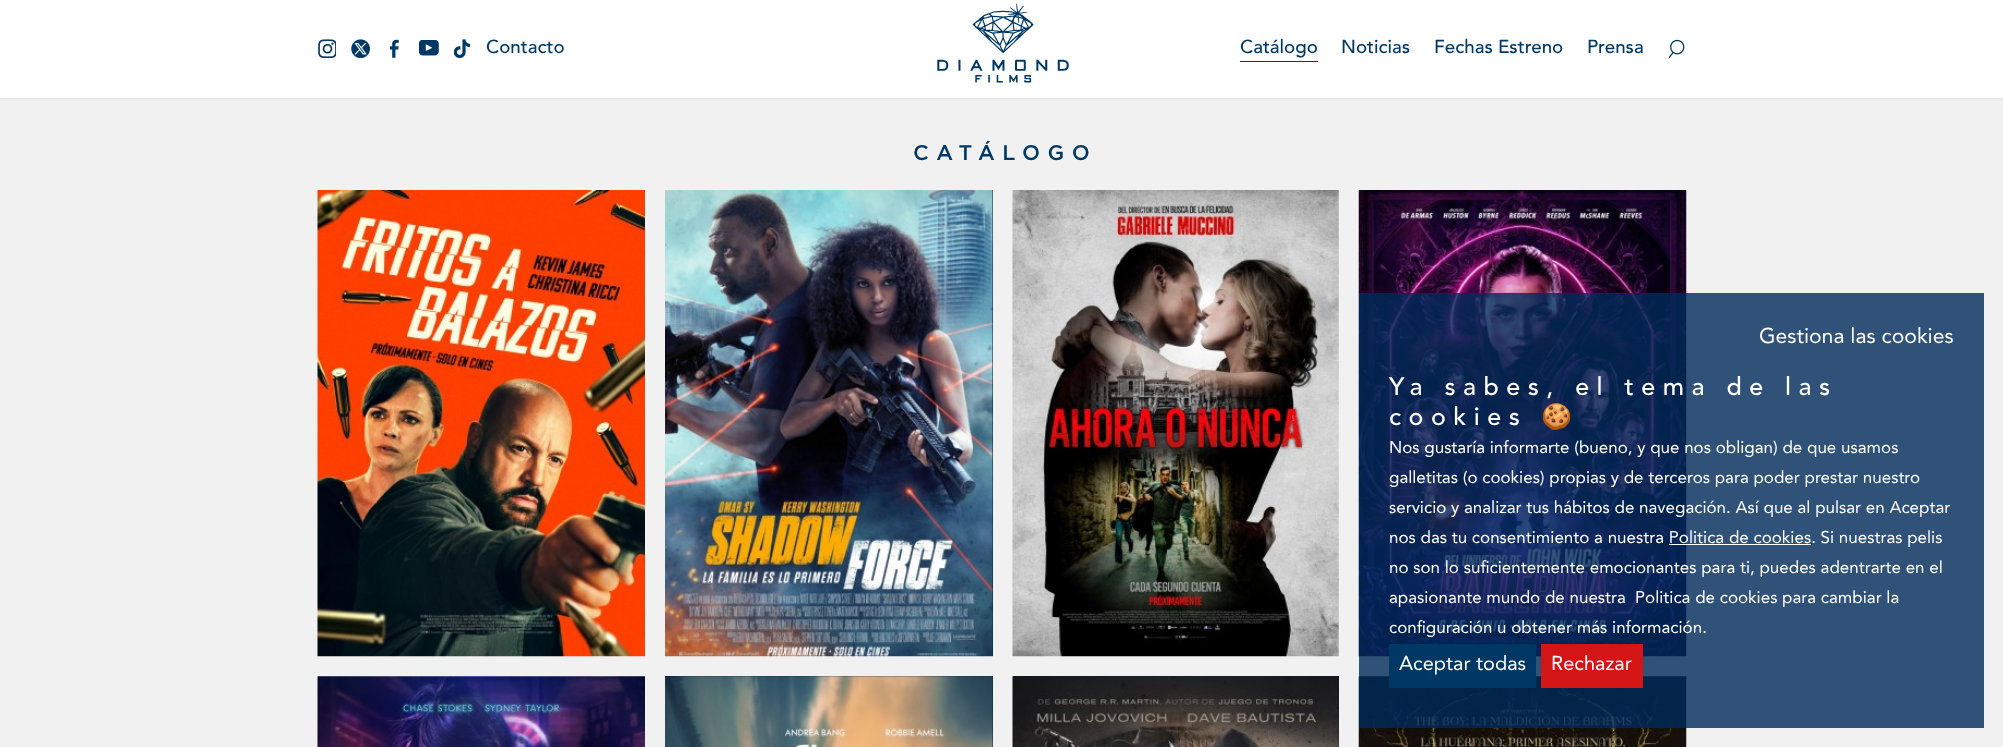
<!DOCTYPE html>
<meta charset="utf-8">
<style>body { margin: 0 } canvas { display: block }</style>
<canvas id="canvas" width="2003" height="747"></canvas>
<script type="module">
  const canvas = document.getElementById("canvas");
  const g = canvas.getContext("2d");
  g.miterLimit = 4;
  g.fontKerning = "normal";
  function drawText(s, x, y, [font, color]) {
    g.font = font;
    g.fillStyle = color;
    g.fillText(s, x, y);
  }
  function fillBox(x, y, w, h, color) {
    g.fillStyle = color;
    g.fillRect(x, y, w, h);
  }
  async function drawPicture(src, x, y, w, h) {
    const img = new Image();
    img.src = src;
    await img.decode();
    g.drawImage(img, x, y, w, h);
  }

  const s1 = ["500 18.75px Avenir", "#003865"];
  const s2 = ["500 21.25px Gotham", "#003865"];
  const s3 = ["21.25px Avenir", "#FFFFFF"];
  const s4 = ["500 25px Avenir", "#FFFFFF"];
  const s5 = ["25px Noto Color Emoji", "#FFFFFF"];
  const s6 = ["17px Avenir", "#FFFFFF"];
  const s7 = ["20px Avenir", "#FFFFFF"];

  fillBox(0, 0, 2003, 747, "#F1F1F1");
  g.fillStyle = "rgba(0, 0, 0, 0.1)";
  g.filter = "blur(2px)";
  g.beginPath();
  g.rect(0, 0, 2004, 98);
  g.fill();
  g.filter = "none";
  fillBox(0, 0, 2003, 98, "#FFFFFF");
  await drawPicture("pic1.png", 318, 39, 18, 19);
  await drawPicture("pic2.png", 351, 39, 19, 19);
  await drawPicture("pic3.png", 390, 39, 9, 19);
  await drawPicture("pic4.png", 419, 40, 20, 16);
  await drawPicture("pic5.png", 454, 39, 16, 19);
  drawText("Contacto", 486, 53, s1);
  await drawPicture("pic6.png", 937, 3, 132, 80);
  fillBox(1240, 61, 78, 1, "#043A6A");
  drawText("Catálogo", 1240, 53, s1);
  drawText("Noticias", 1341, 53, s1);
  drawText("Fechas Estreno", 1434, 53, s1);
  drawText("Prensa", 1587, 53, s1);
  await drawPicture("pic7.png", 1669, 39, 16, 19);
  g.letterSpacing = "7.5px";
  drawText("CATÁLOGO", 913, 160, s2);
  await drawPicture("pic8.png", 317, 190, 328, 467);
  fillBox(992, 190, 1, 466, "#02223B");
  await drawPicture("pic9.png", 665, 190, 328, 467);
  await drawPicture("pic10.png", 1012, 190, 327, 467);
  await drawPicture("pic11.png", 1358, 190, 329, 467);
  await drawPicture("pic12.png", 317, 676, 328, 71);
  fillBox(665, 676, 328, 71, "#02223B");
  await drawPicture("pic13.png", 665, 676, 328, 71);
  fillBox(1013, 676, 326, 71, "#02223B");
  await drawPicture("pic14.png", 1012, 676, 327, 71);
  await drawPicture("pic15.png", 1358, 676, 329, 71);
  fillBox(1359, 293, 625, 435, "rgba(0, 42, 90, 0.8)");
  g.letterSpacing = "0px";
  drawText("Gestiona las cookies", 1759, 343, s3);
  g.letterSpacing = "7.5px";
  drawText("Ya sabes, el tema de las", 1389, 395, s4);
  drawText("cookies", 1389, 425, s4);
  drawText("🍪", 1541, 425, s5);
  g.letterSpacing = "0px";
  drawText("Nos gustaría informarte (bueno, y que nos obligan) de que usamos", 1389, 453, s6);
  drawText("galletitas (o cookies) propias y de terceros para poder prestar nuestro", 1389, 483, s6);
  drawText("servicio y analizar tus hábitos de navegación. Así que al pulsar en Aceptar", 1389, 513, s6);
  drawText("nos das tu consentimiento a nuestra Politica de cookies. Si nuestras pelis", 1389, 543, s6);
  fillBox(1669, 544, 142, 1, "#FFFFFF");
  drawText("no son lo suficientemente emocionantes para ti, puedes adentrarte en el", 1389, 573, s6);
  drawText("apasionante mundo de nuestra", 1389, 603, s6);
  drawText("Politica de cookies para cambiar la", 1635, 603, s6);
  drawText("configuración u obtener más información.", 1389, 633, s6);
  fillBox(1389, 644, 147, 44, "#003865");
  drawText("Aceptar todas", 1399, 670, s7);
  fillBox(1541, 644, 102, 44, "#D41515");
  drawText("Rechazar", 1551, 670, s7);
</script>
